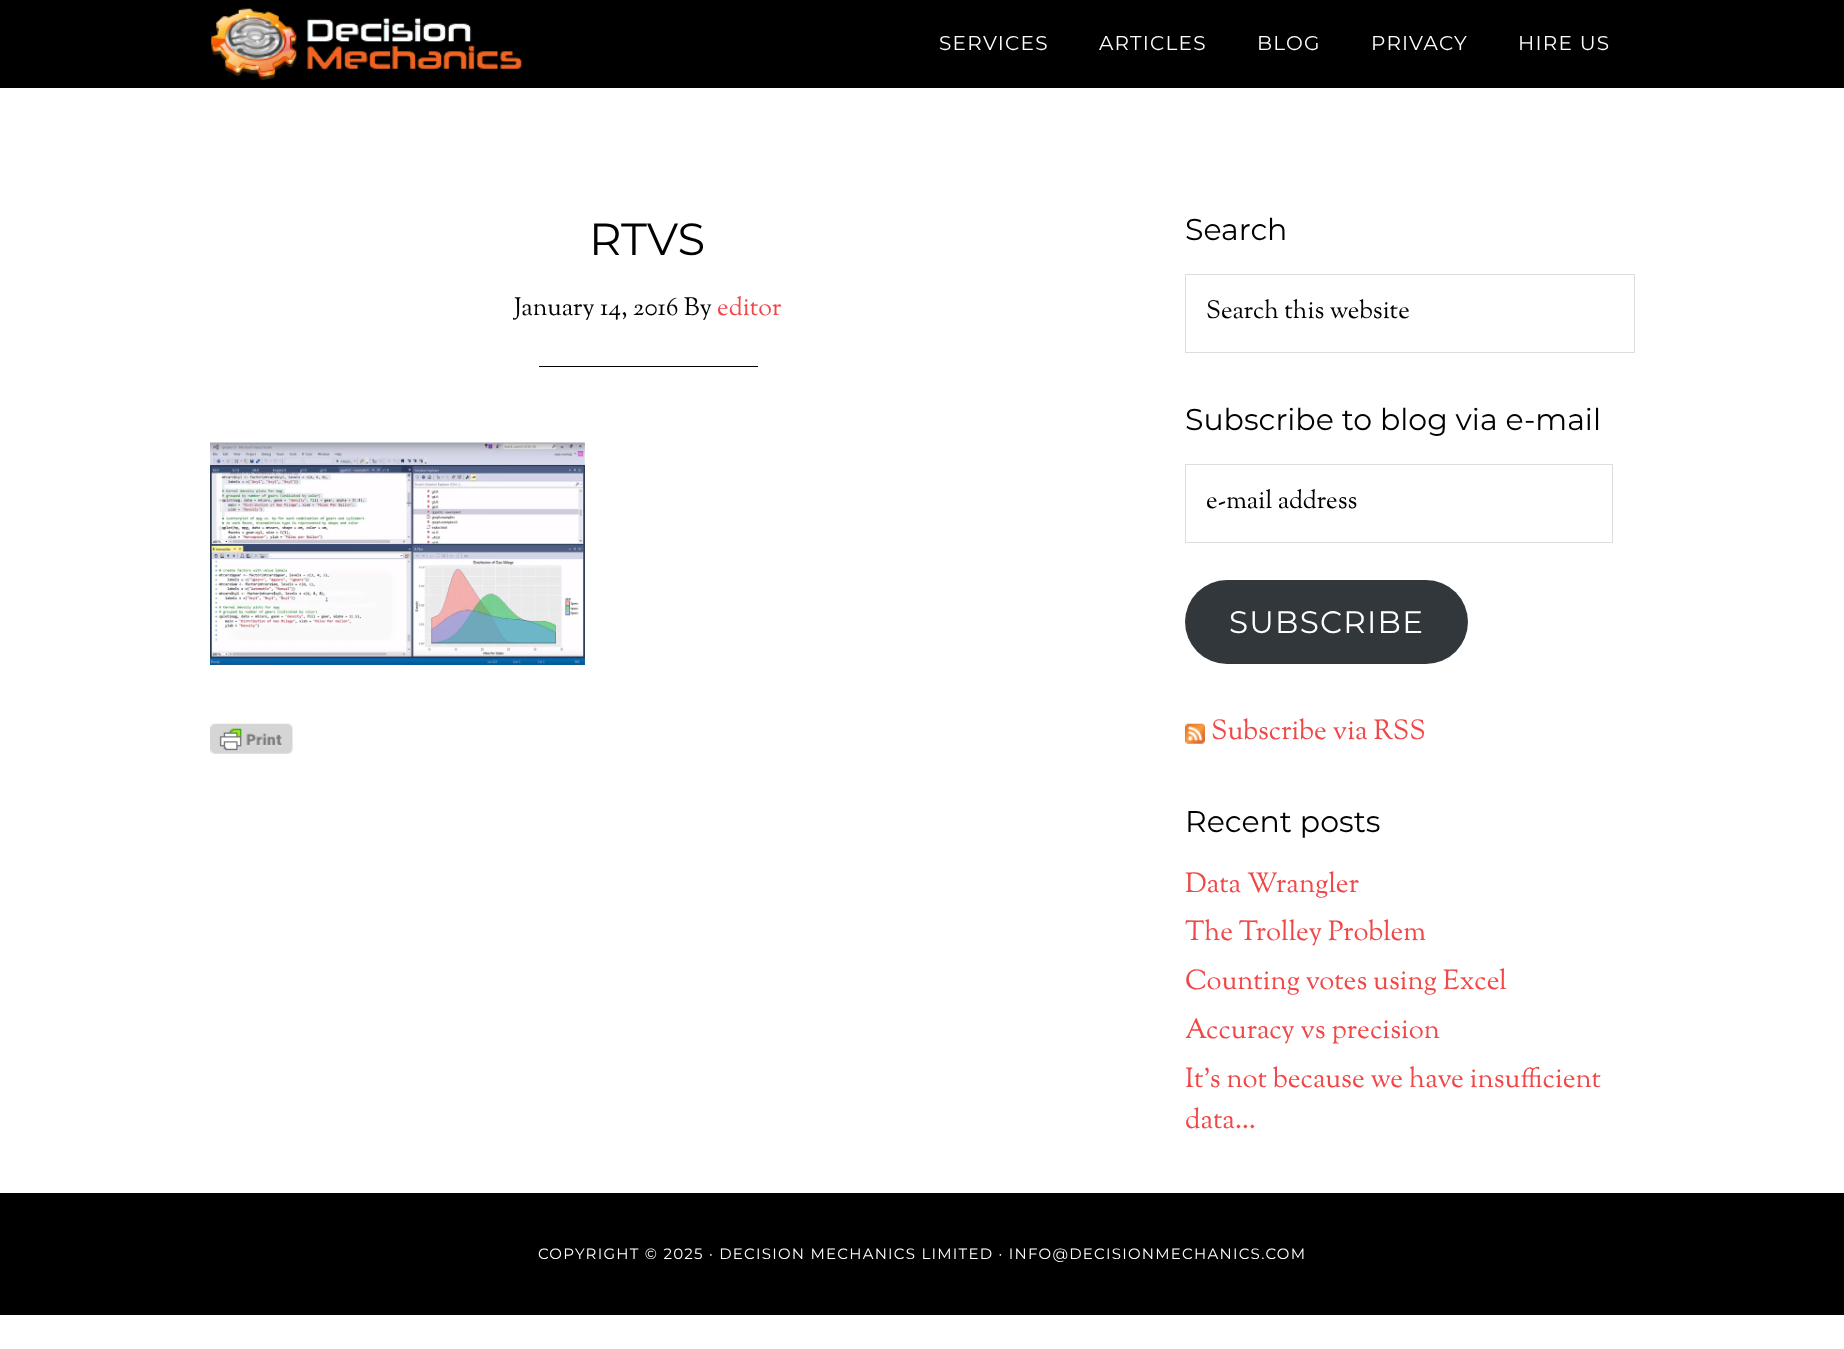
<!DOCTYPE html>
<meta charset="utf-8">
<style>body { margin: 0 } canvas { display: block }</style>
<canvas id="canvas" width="1844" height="1349"></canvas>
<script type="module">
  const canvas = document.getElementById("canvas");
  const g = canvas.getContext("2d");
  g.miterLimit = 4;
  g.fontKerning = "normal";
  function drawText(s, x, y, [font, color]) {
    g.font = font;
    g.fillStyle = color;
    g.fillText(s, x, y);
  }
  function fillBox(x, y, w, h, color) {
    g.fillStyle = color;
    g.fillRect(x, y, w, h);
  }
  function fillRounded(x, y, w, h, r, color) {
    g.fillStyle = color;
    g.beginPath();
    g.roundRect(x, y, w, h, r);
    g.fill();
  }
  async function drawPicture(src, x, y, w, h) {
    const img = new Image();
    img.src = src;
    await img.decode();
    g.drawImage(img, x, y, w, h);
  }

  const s1 = ["100 20px Montserrat", "#FFFFFF"];
  const s2 = ["100 45px Montserrat", "#000000"];
  const s3 = ["25px Sorts Mill Goudy", "#000000"];
  const s4 = ["25px Sorts Mill Goudy", "#F04848"];
  const s5 = ["100 30px Montserrat", "#000000"];
  const s6 = ["100 31px Montserrat", "#FFFFFF"];
  const s7 = ["27.5px Sorts Mill Goudy", "#F04848"];
  const s8 = ["100 15px Montserrat", "#FFFFFF"];

  fillBox(0, 0, 1844, 1349, "#FFFFFF");
  fillBox(0, 0, 1844, 88, "#000000");
  await drawPicture("pic1.png", 210, 8, 312, 73);
  g.letterSpacing = "1.25px";
  drawText("SERVICES", 939, 50, s1);
  drawText("ARTICLES", 1099, 50, s1);
  drawText("BLOG", 1257, 50, s1);
  drawText("PRIVACY", 1371, 50, s1);
  drawText("HIRE US", 1518, 50, s1);
  g.letterSpacing = "0px";
  drawText("RTVS", 589, 255, s2);
  drawText("January 14, 2016 By", 514, 315, s3);
  drawText("editor", 717, 315, s4);
  fillBox(539, 366, 219, 1, "#000000");
  await drawPicture("pic2.png", 210, 442, 375, 223);
  await drawPicture("pic3.png", 210, 723, 83, 31);
  drawText("Search", 1185, 240, s5);
  g.strokeStyle = "#DDDDDD";
  g.strokeRect(1185.5, 274.5, 449, 78);
  drawText("Search this website", 1206, 318, s3);
  drawText("Subscribe to blog via e-mail", 1185, 430, s5);
  g.strokeRect(1185.5, 464.5, 427, 78);
  drawText("e-mail address", 1206, 508, s3);
  fillRounded(1185, 580, 283, 84, 42, "#32373C");
  g.letterSpacing = "1.25px";
  drawText("SUBSCRIBE", 1229, 633, s6);
  await drawPicture("pic4.png", 1185, 723, 20, 21);
  g.letterSpacing = "0px";
  drawText("Subscribe via RSS", 1211, 739, s7);
  drawText("Recent posts", 1185, 832, s5);
  drawText("Data Wrangler", 1185, 892, s7);
  drawText("The Trolley Problem", 1185, 940, s7);
  drawText("Counting votes using Excel", 1185, 989, s7);
  drawText("Accuracy vs precision", 1185, 1038, s7);
  drawText("It’s not because we have insufficient", 1185, 1087, s7);
  drawText("data…", 1185, 1128, s7);
  fillBox(0, 1193, 1844, 122, "#000000");
  g.letterSpacing = "1.25px";
  drawText("COPYRIGHT © 2025 · DECISION MECHANICS LIMITED · INFO@DECISIONMECHANICS.COM", 538, 1259, s8);
</script>
